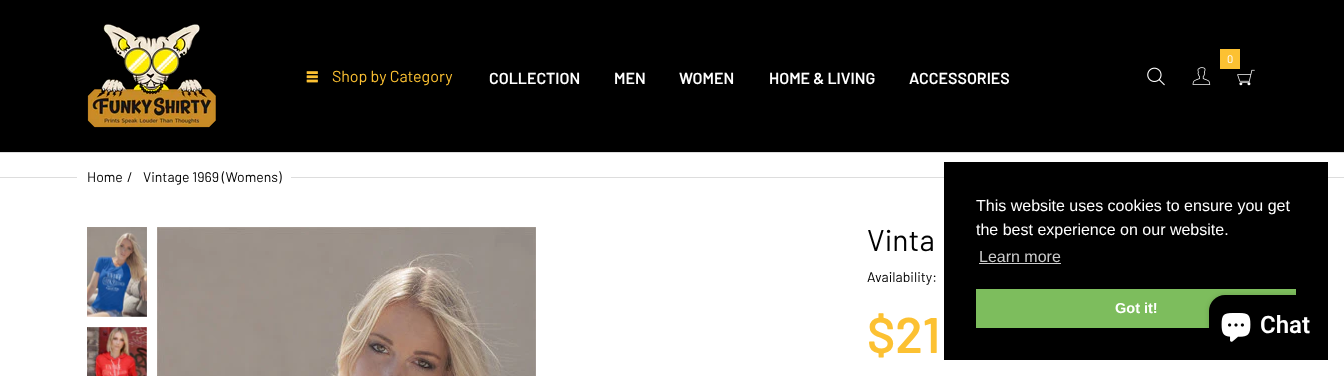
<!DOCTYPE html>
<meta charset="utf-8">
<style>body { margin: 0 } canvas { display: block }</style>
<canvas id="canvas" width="1344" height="376"></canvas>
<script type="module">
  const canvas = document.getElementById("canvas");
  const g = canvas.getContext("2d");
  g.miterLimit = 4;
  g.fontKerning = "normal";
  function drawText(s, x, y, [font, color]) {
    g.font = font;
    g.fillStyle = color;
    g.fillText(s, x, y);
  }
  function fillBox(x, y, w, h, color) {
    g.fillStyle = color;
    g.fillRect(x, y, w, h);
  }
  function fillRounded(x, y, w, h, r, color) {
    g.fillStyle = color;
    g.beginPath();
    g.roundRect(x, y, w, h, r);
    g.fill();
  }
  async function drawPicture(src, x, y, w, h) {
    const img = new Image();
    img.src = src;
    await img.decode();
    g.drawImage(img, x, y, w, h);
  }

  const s1 = ["11px Barlow", "#FFFFFF"];
  const s2 = ["16px Barlow", "#FCC132"];
  const s3 = ["600 16px Barlow", "#FFFFFF"];
  const s4 = ["14px Barlow", "#000000"];
  const s5 = ["30px Barlow", "#000000"];
  const s6 = ["600 50px Barlow", "#FCC132"];
  const s7 = ["16px Liberation Sans", "#FFFFFF"];
  const s8 = ["16px Liberation Sans", "#CCCCCC"];
  const s9 = ["bold 14.5px Liberation Sans", "#FFFFFF"];
  const s10 = ["600 24px Roboto", "#FFFFFF"];

  fillBox(0, 0, 1344, 376, "#FFFFFF");
  fillBox(0, 152, 1344, 1, "#DDDDDD");
  fillBox(0, 0, 1344, 152, "#000000");
  await drawPicture("pic1.png", 87, 23, 129, 105);
  fillBox(1220, 49, 20, 20, "#FCC132");
  drawText("0", 1227, 63, s1);
  await drawPicture("pic2.png", 1237, 69, 18, 17);
  await drawPicture("pic3.png", 1147, 67, 18, 19);
  await drawPicture("pic4.png", 1192, 67, 19, 18);
  await drawPicture("pic5.png", 306, 71, 12, 12);
  drawText("Shop by Category", 332, 82, s2);
  drawText("COLLECTION", 489, 84, s3);
  drawText("MEN", 614, 84, s3);
  drawText("WOMEN", 679, 84, s3);
  drawText("HOME & LIVING", 769, 84, s3);
  drawText("ACCESSORIES", 909, 84, s3);
  fillBox(0, 177, 77, 1, "#DDDDDD");
  drawText("Home", 87, 182, s4);
  drawText("/", 127, 182, s4);
  drawText("Vintage 1969 (Womens)", 143, 182, s4);
  fillBox(291, 177, 1053, 1, "#DDDDDD");
  await drawPicture("pic6.png", 87, 227, 60, 90);
  await drawPicture("pic7.png", 87, 327, 60, 49);
  await drawPicture("pic8.png", 157, 227, 379, 149);
  drawText("Vinta", 867, 251, s5);
  drawText("Availability:", 867, 282, s4);
  drawText("$21", 867, 353, s6);
  fillBox(944, 162, 384, 198, "#000000");
  drawText("This website uses cookies to ensure you get", 976, 211, s7);
  drawText("the best experience on our website.", 976, 235, s7);
  drawText("Learn more", 979, 262, s8);
  fillBox(979, 263, 82, 1, "#CCCCCC");
  fillBox(976, 289, 320, 39, "#7DBD5D");
  drawText("Got it!", 1115, 313, s9);
  g.fillStyle = "rgba(0, 0, 0, 0.15)";
  g.filter = "blur(2.5px)";
  g.beginPath();
  g.roundRect(1209, 295, 113, 60, 16);
  g.fill();
  g.filter = "none";
  fillRounded(1209, 295, 113, 60, 16, "#000000");
  await drawPicture("pic9.png", 1221, 313, 30, 29);
  drawText("Chat", 1260, 333, s10);
</script>
